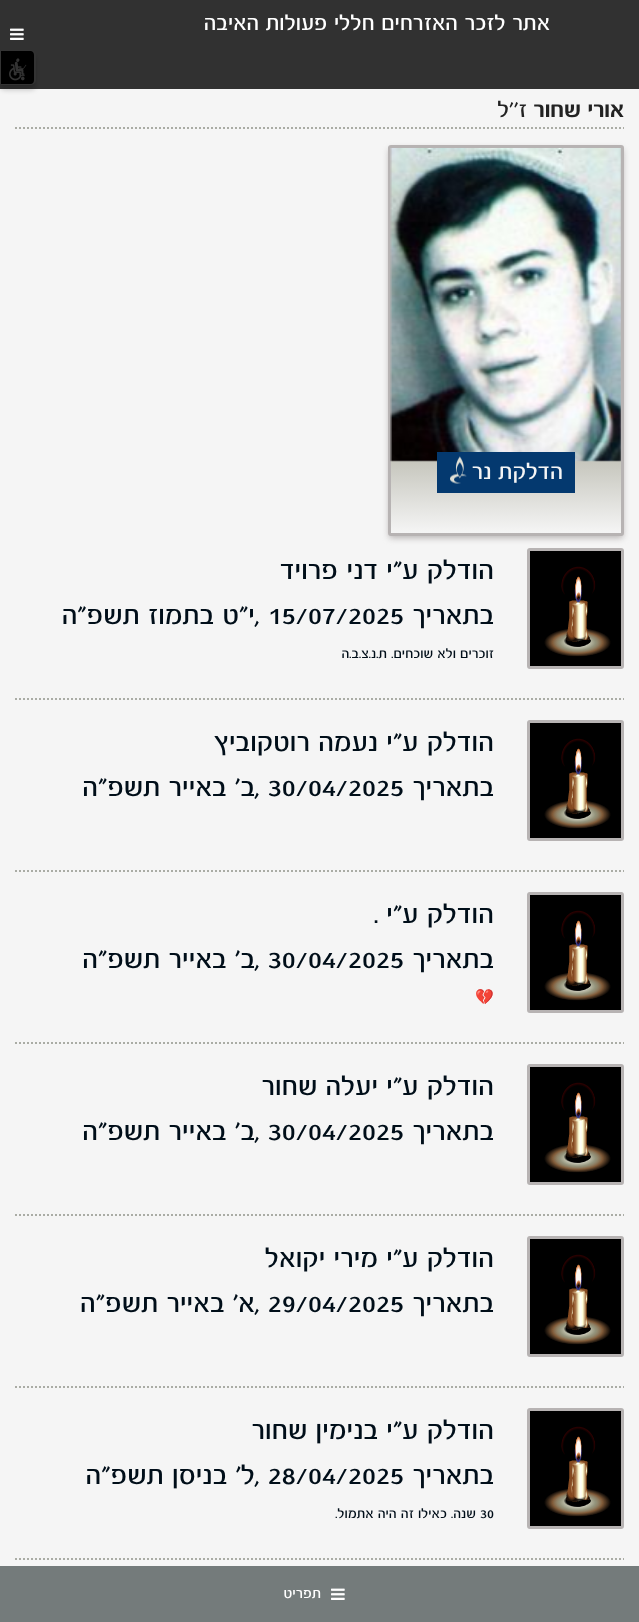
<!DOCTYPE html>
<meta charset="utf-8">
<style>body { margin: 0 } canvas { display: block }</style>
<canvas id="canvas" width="639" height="1622"></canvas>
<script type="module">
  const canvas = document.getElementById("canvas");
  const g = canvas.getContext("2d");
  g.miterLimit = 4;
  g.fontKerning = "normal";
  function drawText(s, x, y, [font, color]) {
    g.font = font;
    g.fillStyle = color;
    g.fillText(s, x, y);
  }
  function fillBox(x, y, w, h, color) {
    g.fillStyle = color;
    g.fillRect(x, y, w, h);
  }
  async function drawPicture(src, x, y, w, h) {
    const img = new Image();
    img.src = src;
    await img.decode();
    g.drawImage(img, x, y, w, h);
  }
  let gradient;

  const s1 = ["24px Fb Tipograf", "#FFFFFF"];
  const s2 = ["bold 25px Fb Tipograf", "#222222"];
  const s3 = ["25px Fb Tipograf", "#222222"];
  const s4 = ["25px Fb Tipograf", "#F5F5F5"];
  const s5 = ["30px Fb Tipograf", "#000E19"];
  const s6 = ["15px Fb Tipograf", "#000E19"];
  const s7 = ["15px Noto Color Emoji", "#000E19"];
  const s8 = ["16px Fb Tipograf", "#FFFFFF"];

  fillBox(0, 0, 639, 1622, "#F5F5F5");
  g.fillStyle = "rgba(0, 1, 1, 0.19)";
  g.filter = "blur(2.5px)";
  g.beginPath();
  g.roundRect(0, 55, 36, 35, 5);
  g.fill();
  g.filter = "none";
  g.fillStyle = "#000000";
  g.beginPath();
  g.moveTo(1, 51);
  g.lineTo(31, 51);
  g.bezierCurveTo(32.5, 51, 34, 53, 34, 55);
  g.lineTo(34, 80);
  g.bezierCurveTo(34, 82, 32.5, 84, 31, 84);
  g.lineTo(1, 84);
  g.closePath();
  g.fill();
  g.beginPath();
  g.roundRect(0.5, 50.5, 35, 34, [0, 4.5, 4.5, 0]);
  g.strokeStyle = "#FFFFFF";
  g.stroke();
  fillBox(34, 53, 1, 30, "#FFFFFF");
  await drawPicture("pic6.png", 9, 58, 18, 23);
  fillBox(0, 0, 639, 89, "rgba(0, 0, 0, 0.8)");
  g.direction = "rtl";
  drawText("אתר לזכר האזרחים חללי פעולות האיבה", 550, 30, s1);
  await drawPicture("pic1.png", 10, 28, 14, 12);
  g.beginPath();
  g.moveTo(15, 128);
  g.lineTo(624, 128);
  g.strokeStyle = "#AAACA5";
  g.lineWidth = 2;
  g.setLineDash([2, 2]);
  g.stroke();
  drawText("אורי", 624, 117, s2);
  drawText("שחור", 581, 117, s2);
  drawText("ז''ל", 527, 117, s3);
  g.fillStyle = "#B7B3B3";
  g.filter = "blur(3px)";
  g.beginPath();
  g.roundRect(389, 149, 234, 389, 2);
  g.fill();
  g.filter = "none";
  g.beginPath();
  g.roundRect(389.5, 146.5, 233, 388, 1.5);
  g.fill();
  g.strokeStyle = "#B7B3B3";
  g.lineWidth = 3;
  g.setLineDash([]);
  g.stroke();
  gradient = g.createLinearGradient(506, 461, 506, 533);
  gradient.addColorStop(0, "#C6C6BD");
  gradient.addColorStop(1, "#F5F5F5");
  g.fillStyle = gradient;
  g.fillRect(391, 461, 230, 72);
  await drawPicture("pic2.png", 390, 148, 231, 314);
  fillBox(437, 452, 138, 41, "#04396F");
  drawText("הדלקת נר", 563, 479, s4);
  await drawPicture("pic3.png", 450, 456, 17, 28);
  g.beginPath();
  g.moveTo(15, 699);
  g.lineTo(624, 699);
  g.strokeStyle = "#AAACA5";
  g.lineWidth = 2;
  g.setLineDash([2, 2]);
  g.stroke();
  await drawPicture("pic4.png", 530, 551, 91, 115);
  g.beginPath();
  g.roundRect(528.5, 549.5, 94, 118, 1.5);
  g.strokeStyle = "#B7B3B3";
  g.lineWidth = 3;
  g.setLineDash([]);
  g.stroke();
  drawText("הודלק ע\"י דני", 494, 579, s5);
  drawText("פרויד", 338, 579, s5);
  drawText("בתאריך", 494, 624, s5);
  g.direction = "ltr";
  drawText(", 15/07/2025", 255, 624, s5);
  g.direction = "rtl";
  drawText("י\"ט בתמוז תשפ\"ה", 255, 624, s5);
  drawText("זוכרים ולא שוכחים. ת.נ.צ.ב.ה", 494, 658, s6);
  g.beginPath();
  g.moveTo(15, 871);
  g.lineTo(624, 871);
  g.strokeStyle = "#AAACA5";
  g.lineWidth = 2;
  g.setLineDash([2, 2]);
  g.stroke();
  await drawPicture("pic4.png", 530, 723, 91, 115);
  g.beginPath();
  g.roundRect(528.5, 721.5, 94, 118, 1.5);
  g.strokeStyle = "#B7B3B3";
  g.lineWidth = 3;
  g.setLineDash([]);
  g.stroke();
  drawText("הודלק ע\"י נעמה רוטקוביץ", 494, 751, s5);
  drawText("בתאריך", 494, 796, s5);
  g.direction = "ltr";
  drawText(", 30/04/2025", 255, 796, s5);
  g.direction = "rtl";
  drawText("ב' באייר תשפ\"ה", 255, 796, s5);
  g.beginPath();
  g.moveTo(15, 1043);
  g.lineTo(624, 1043);
  g.strokeStyle = "#AAACA5";
  g.lineWidth = 2;
  g.setLineDash([2, 2]);
  g.stroke();
  await drawPicture("pic4.png", 530, 895, 91, 115);
  g.beginPath();
  g.roundRect(528.5, 893.5, 94, 118, 1.5);
  g.strokeStyle = "#B7B3B3";
  g.lineWidth = 3;
  g.setLineDash([]);
  g.stroke();
  drawText("הודלק ע\"י", 494, 923, s5);
  g.direction = "ltr";
  drawText(".", 374, 923, s5);
  g.direction = "rtl";
  drawText("בתאריך", 494, 968, s5);
  g.direction = "ltr";
  drawText(", 30/04/2025", 255, 968, s5);
  g.direction = "rtl";
  drawText("ב' באייר תשפ\"ה", 255, 968, s5);
  g.direction = "ltr";
  drawText("💔", 475, 1002, s7);
  g.beginPath();
  g.moveTo(15, 1215);
  g.lineTo(624, 1215);
  g.strokeStyle = "#AAACA5";
  g.lineWidth = 2;
  g.setLineDash([2, 2]);
  g.stroke();
  await drawPicture("pic4.png", 530, 1067, 91, 115);
  g.beginPath();
  g.roundRect(528.5, 1065.5, 94, 118, 1.5);
  g.strokeStyle = "#B7B3B3";
  g.lineWidth = 3;
  g.setLineDash([]);
  g.stroke();
  g.direction = "rtl";
  drawText("הודלק ע\"י יעלה שחור", 494, 1095, s5);
  drawText("בתאריך", 494, 1140, s5);
  g.direction = "ltr";
  drawText(", 30/04/2025", 255, 1140, s5);
  g.direction = "rtl";
  drawText("ב' באייר תשפ\"ה", 255, 1140, s5);
  g.beginPath();
  g.moveTo(15, 1387);
  g.lineTo(624, 1387);
  g.strokeStyle = "#AAACA5";
  g.lineWidth = 2;
  g.setLineDash([2, 2]);
  g.stroke();
  await drawPicture("pic4.png", 530, 1239, 91, 115);
  g.beginPath();
  g.roundRect(528.5, 1237.5, 94, 118, 1.5);
  g.strokeStyle = "#B7B3B3";
  g.lineWidth = 3;
  g.setLineDash([]);
  g.stroke();
  drawText("הודלק ע\"י מירי יקואל", 494, 1267, s5);
  drawText("בתאריך", 494, 1312, s5);
  g.direction = "ltr";
  drawText(", 29/04/2025", 255, 1312, s5);
  g.direction = "rtl";
  drawText("א' באייר תשפ\"ה", 255, 1312, s5);
  g.beginPath();
  g.moveTo(15, 1559);
  g.lineTo(624, 1559);
  g.strokeStyle = "#AAACA5";
  g.lineWidth = 2;
  g.setLineDash([2, 2]);
  g.stroke();
  await drawPicture("pic4.png", 530, 1411, 91, 115);
  g.beginPath();
  g.roundRect(528.5, 1409.5, 94, 118, 1.5);
  g.strokeStyle = "#B7B3B3";
  g.lineWidth = 3;
  g.setLineDash([]);
  g.stroke();
  drawText("הודלק ע\"י בנימין שחור", 494, 1439, s5);
  drawText("בתאריך", 494, 1484, s5);
  g.direction = "ltr";
  drawText(", 28/04/2025", 255, 1484, s5);
  g.direction = "rtl";
  drawText("ל' בניסן תשפ\"ה", 255, 1484, s5);
  g.direction = "ltr";
  drawText("30", 480, 1518, s6);
  g.direction = "rtl";
  drawText("שנה. כאילו זה היה אתמול.", 476, 1518, s6);
  fillBox(0, 1566, 639, 56, "#747B7B");
  await drawPicture("pic5.png", 331, 1588, 14, 12);
  drawText("תפריט", 321, 1598, s8);
</script>
